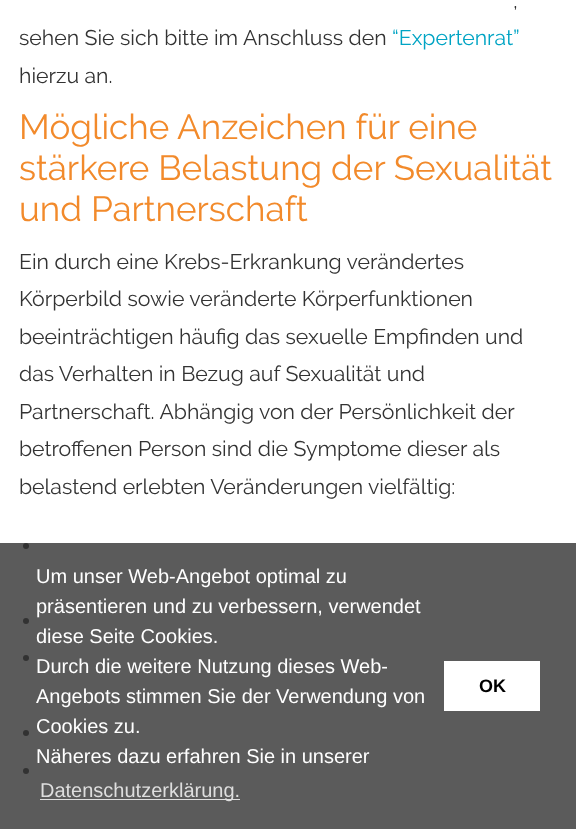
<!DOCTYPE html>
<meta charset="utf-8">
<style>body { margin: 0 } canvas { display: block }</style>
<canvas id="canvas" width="576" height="829"></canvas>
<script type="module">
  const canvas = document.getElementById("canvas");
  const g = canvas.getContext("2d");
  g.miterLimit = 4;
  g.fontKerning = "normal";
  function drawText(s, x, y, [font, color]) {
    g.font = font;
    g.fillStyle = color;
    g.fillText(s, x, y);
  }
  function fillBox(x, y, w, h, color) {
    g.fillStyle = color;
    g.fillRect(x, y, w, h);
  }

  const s1 = ["21.25px Raleway", "#333333"];
  const s2 = ["21.25px Raleway", "#00A4C4"];
  const s3 = ["35px Raleway", "#F28A2B"];
  const s4 = ["20px Liberation Sans", "#FFFFFF"];
  const s5 = ["20px Liberation Sans", "#DEDEDE"];
  const s6 = ["bold 18px Liberation Sans", "#000000"];

  fillBox(0, 0, 576, 829, "#FFFFFF");
  drawText(",", 513, 8, s1);
  drawText("sehen Sie sich bitte im Anschluss den", 19, 45, s1);
  drawText("“Expertenrat”", 392, 45, s2);
  drawText("hierzu an.", 19, 83, s1);
  drawText("Mögliche Anzeichen für eine", 19, 139, s3);
  drawText("stärkere Belastung der Sexualität", 19, 180, s3);
  drawText("und Partnerschaft", 19, 221, s3);
  drawText("Ein durch eine Krebs-Erkrankung verändertes", 19, 269, s1);
  drawText("Körperbild sowie veränderte Körperfunktionen", 19, 306, s1);
  drawText("beeinträchtigen häufig das sexuelle Empfinden und", 19, 344, s1);
  drawText("das Verhalten in Bezug auf Sexualität und", 19, 381, s1);
  drawText("Partnerschaft. Abhängig von der Persönlichkeit der", 19, 419, s1);
  drawText("betroffenen Person sind die Symptome dieser als", 19, 456, s1);
  drawText("belastend erlebten Veränderungen vielfältig:", 19, 494, s1);
  g.beginPath();
  g.arc(26, 546, 3, 0, Math.PI * 2);
  g.fill();
  g.beginPath();
  g.arc(26, 621, 3, 0, Math.PI * 2);
  g.fill();
  g.beginPath();
  g.arc(26, 658, 3, 0, Math.PI * 2);
  g.fill();
  g.beginPath();
  g.arc(26, 733, 3, 0, Math.PI * 2);
  g.fill();
  g.beginPath();
  g.arc(26, 771, 3, 0, Math.PI * 2);
  g.fill();
  fillBox(0, 543, 576, 286, "rgba(50, 50, 50, 0.8)");
  drawText("Um unser Web-Angebot optimal zu", 36, 583, s4);
  drawText("präsentieren und zu verbessern, verwendet", 36, 613, s4);
  drawText("diese Seite Cookies.", 36, 643, s4);
  drawText("Durch die weitere Nutzung dieses Web-", 36, 673, s4);
  drawText("Angebots stimmen Sie der Verwendung von", 36, 703, s4);
  drawText("Cookies zu.", 36, 733, s4);
  drawText("Näheres dazu erfahren Sie in unserer", 36, 763, s4);
  fillBox(40, 799, 200, 1, "rgba(255, 255, 255, 0.8)");
  drawText("Datenschutzerklärung.", 40, 797, s5);
  fillBox(444, 661, 96, 50, "#FFFFFF");
  drawText("OK", 479, 692, s6);
</script>
